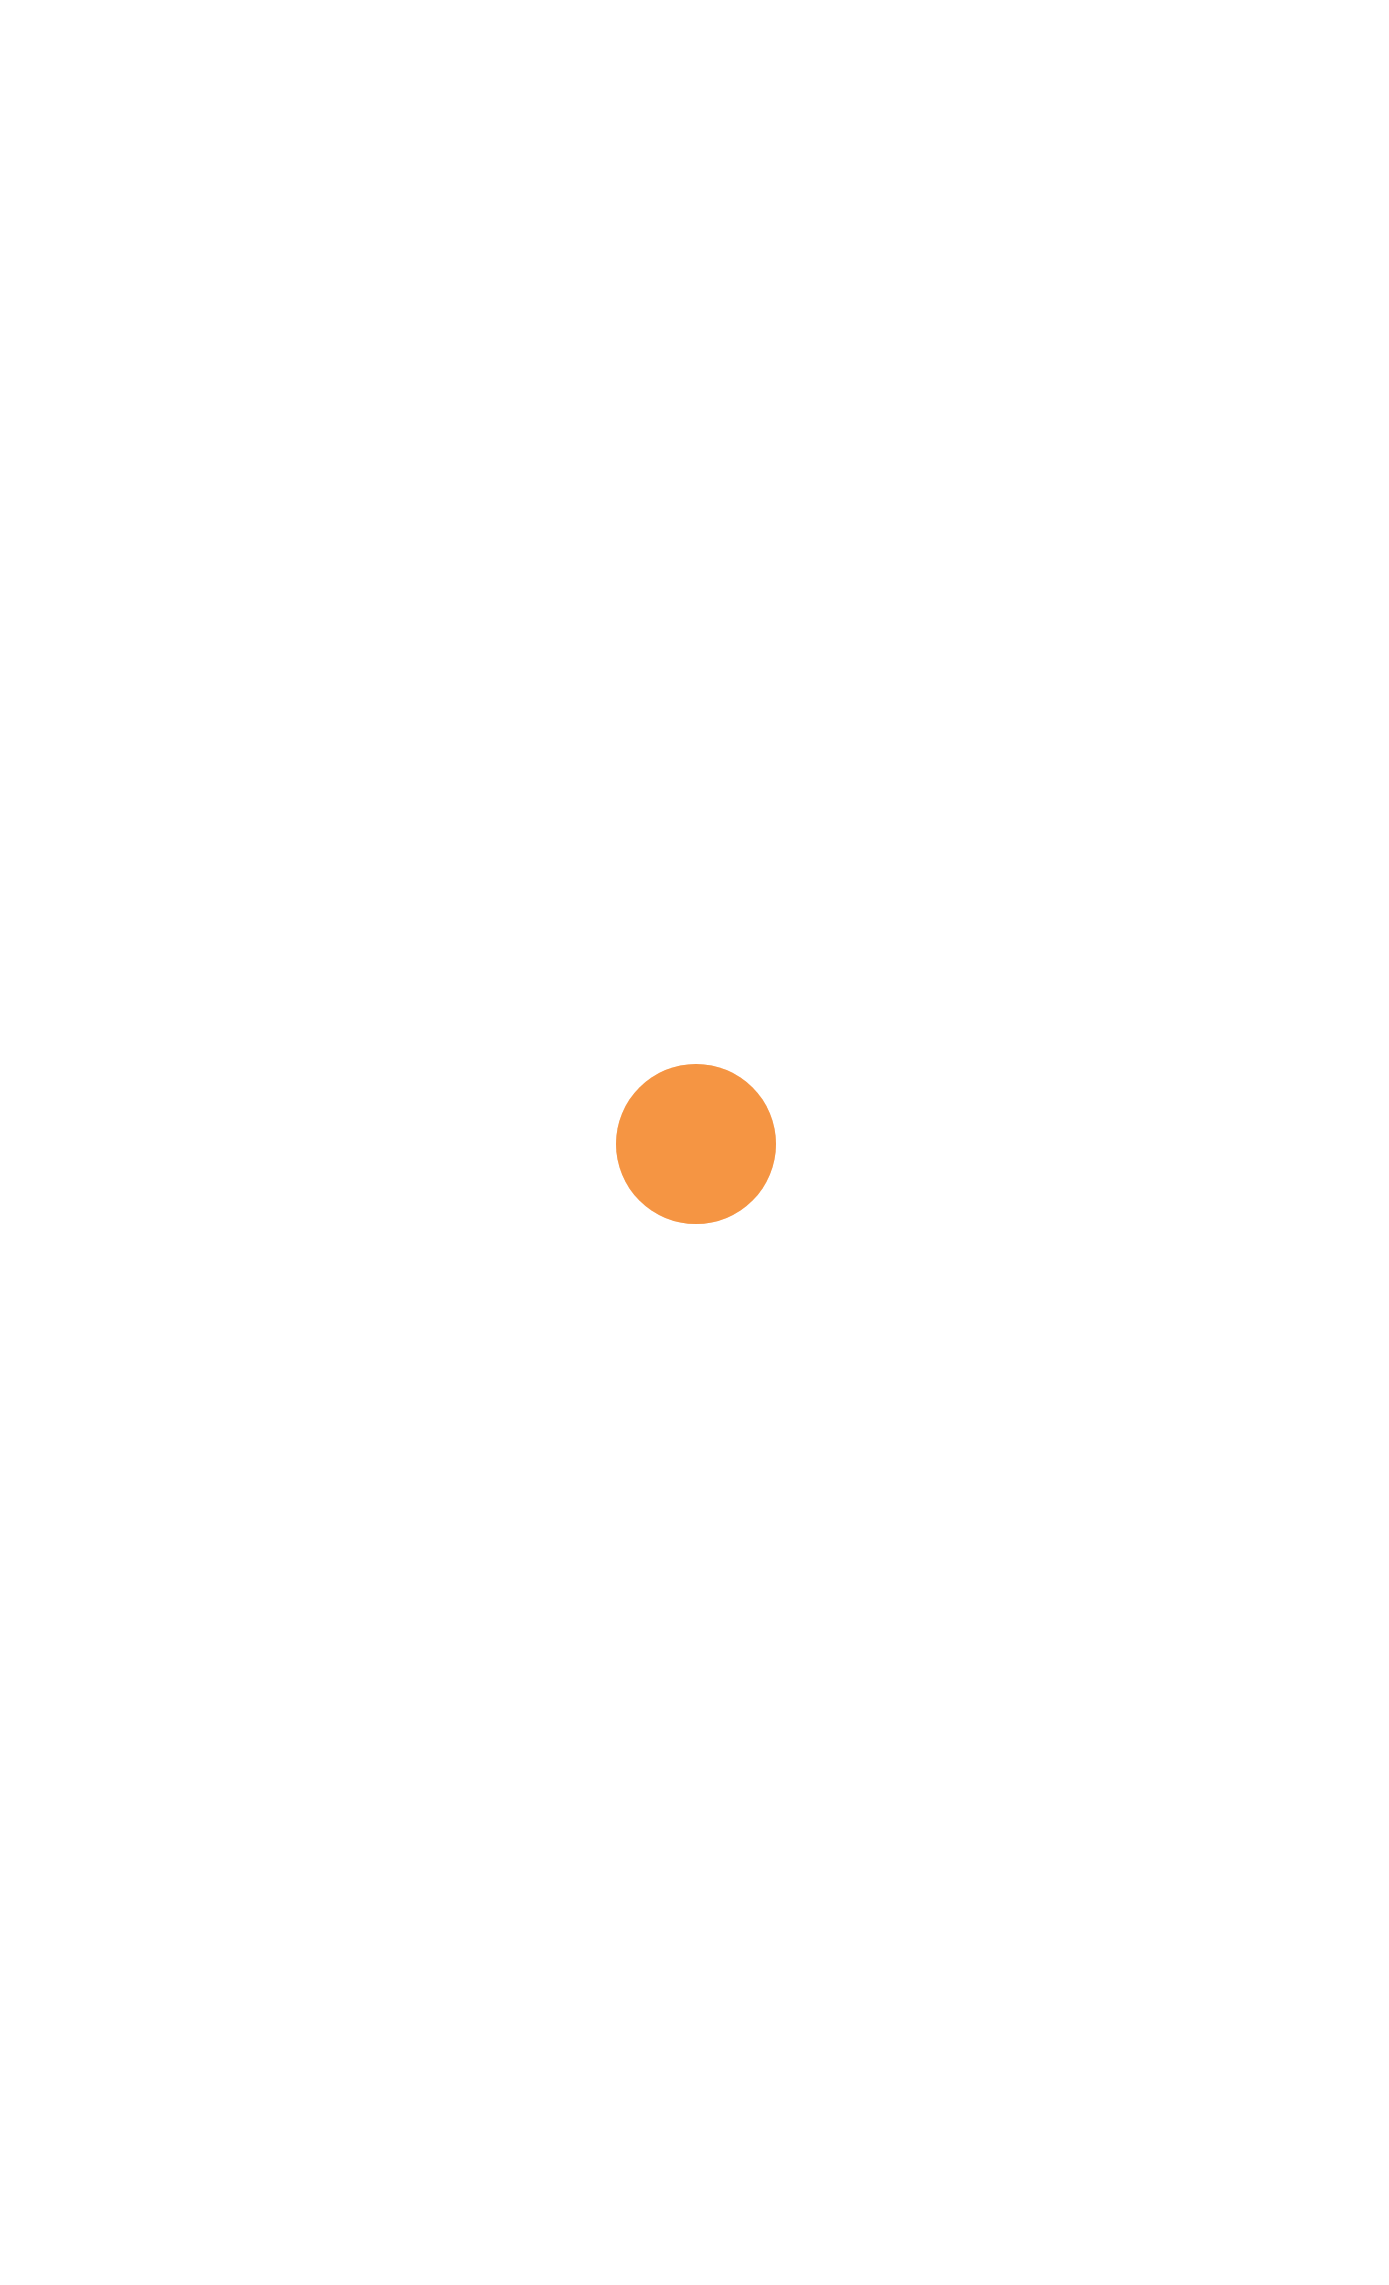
<!DOCTYPE html>
<meta charset="utf-8">
<style>body { margin: 0 } canvas { display: block }</style>
<canvas id="canvas" width="1389" height="2285"></canvas>
<script type="module">
  const canvas = document.getElementById("canvas");
  const g = canvas.getContext("2d");
  g.miterLimit = 4;
  g.fontKerning = "normal";
  function fillBox(x, y, w, h, color) {
    g.fillStyle = color;
    g.fillRect(x, y, w, h);
  }

  fillBox(0, 0, 1389, 2285, "#FFFFFF");
  g.fillStyle = "#F8B379";
  g.beginPath();
  g.arc(696, 1144, 80, 0, Math.PI * 2);
  g.fill();
  g.fillStyle = "rgba(244, 129, 32, 0.6)";
  g.beginPath();
  g.arc(696, 1144, 80, 0, Math.PI * 2);
  g.fill();
</script>
